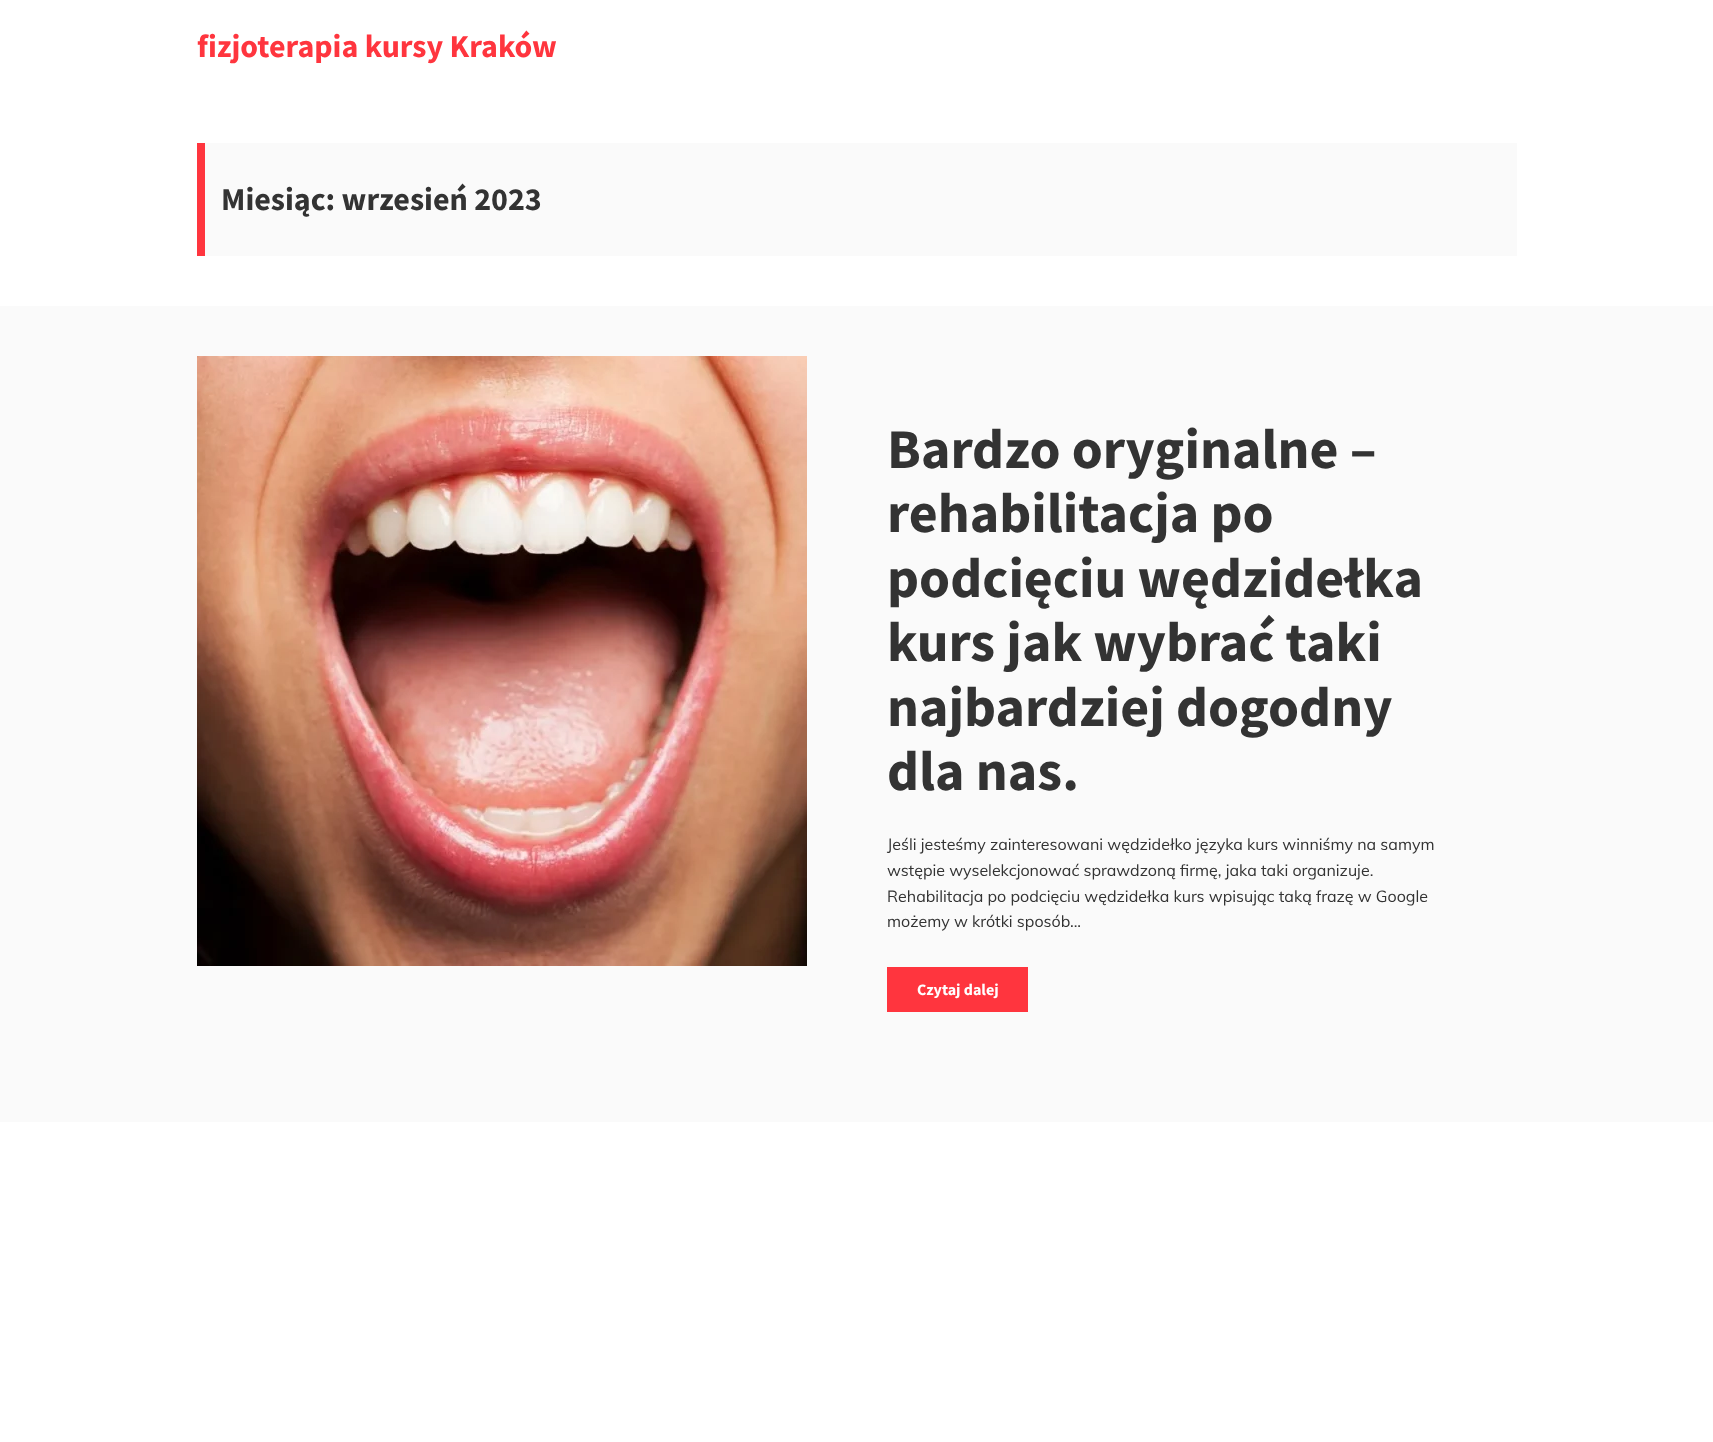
<!DOCTYPE html>
<meta charset="utf-8">
<style>body { margin: 0 } canvas { display: block }</style>
<canvas id="canvas" width="1713" height="1442"></canvas>
<script type="module">
  const canvas = document.getElementById("canvas");
  const g = canvas.getContext("2d");
  g.miterLimit = 4;
  g.fontKerning = "normal";
  function drawText(s, x, y, [font, color]) {
    g.font = font;
    g.fillStyle = color;
    g.fillText(s, x, y);
  }
  function fillBox(x, y, w, h, color) {
    g.fillStyle = color;
    g.fillRect(x, y, w, h);
  }
  async function drawPicture(src, x, y, w, h) {
    const img = new Image();
    img.src = src;
    await img.decode();
    g.drawImage(img, x, y, w, h);
  }

  const s1 = ["bold 32px Source Sans Pro", "#FF353E"];
  const s2 = ["bold 32px Source Sans Pro", "#333333"];
  const s3 = ["bold 56px Source Sans Pro", "#333333"];
  const s4 = ["16px Muli", "#333333"];
  const s5 = ["bold 16px Source Sans Pro", "#FFFFFF"];

  fillBox(0, 0, 1713, 1442, "#FFFFFF");
  drawText("fizjoterapia kursy Kraków", 197, 57, s1);
  fillBox(205, 143, 1312, 113, "#FAFAFA");
  fillBox(197, 143, 8, 113, "#FF353E");
  drawText("Miesiąc: wrzesień 2023", 221, 210, s2);
  fillBox(0, 306, 1713, 816, "#FAFAFA");
  await drawPicture("pic1.png", 197, 356, 610, 610);
  drawText("Bardzo oryginalne –", 887, 468, s3);
  drawText("rehabilitacja po", 887, 532, s3);
  drawText("podcięciu wędzidełka", 887, 597, s3);
  drawText("kurs jak wybrać taki", 887, 661, s3);
  drawText("najbardziej dogodny", 887, 726, s3);
  drawText("dla nas.", 887, 790, s3);
  drawText("Jeśli jesteśmy zainteresowani wędzidełko języka kurs winniśmy na samym", 887, 850, s4);
  drawText("wstępie wyselekcjonować sprawdzoną firmę, jaka taki organizuje.", 887, 876, s4);
  drawText("Rehabilitacja po podcięciu wędzidełka kurs wpisując taką frazę w Google", 887, 902, s4);
  drawText("możemy w krótki sposób...", 887, 927, s4);
  fillBox(887, 967, 141, 45, "#FF353E");
  drawText("Czytaj dalej", 917, 995, s5);
</script>
